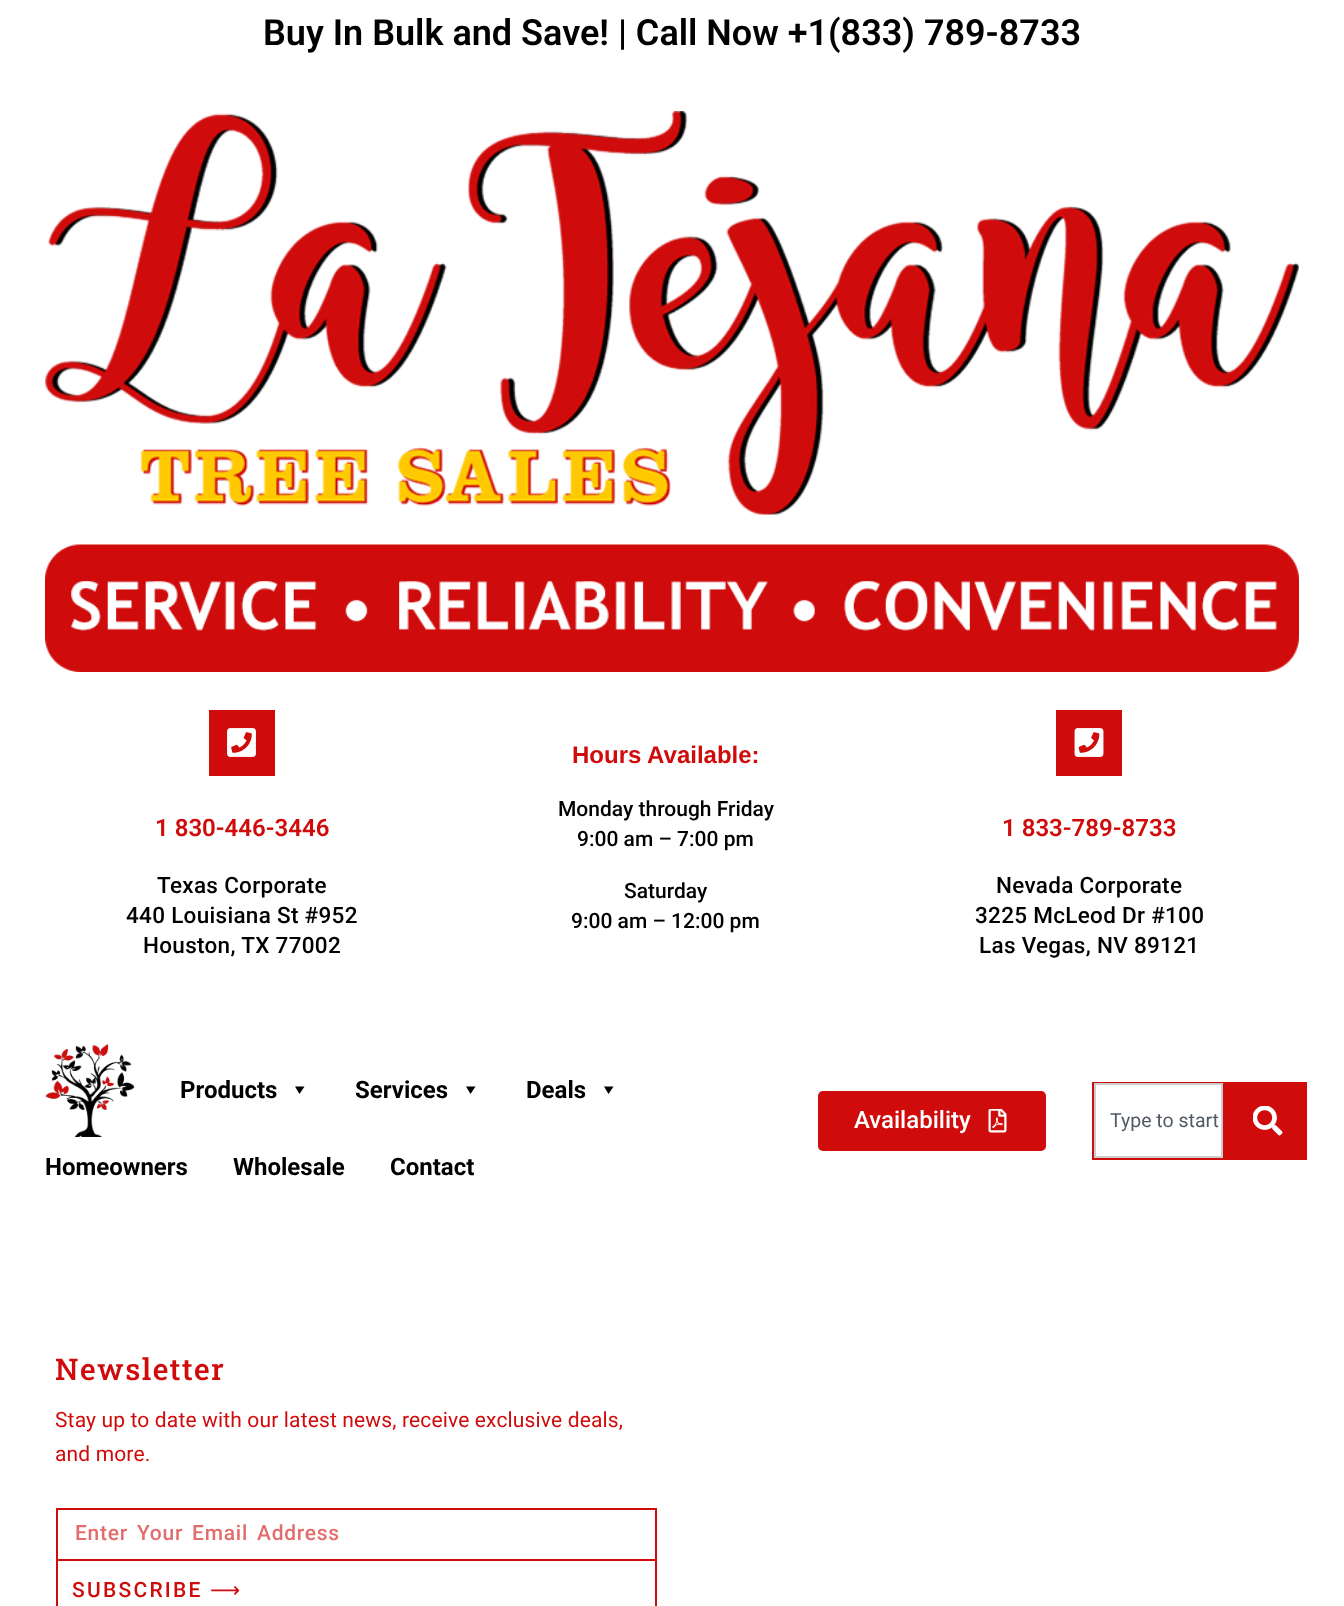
<!DOCTYPE html>
<meta charset="utf-8">
<style>body { margin: 0 } canvas { display: block }</style>
<canvas id="canvas" width="1344" height="1606"></canvas>
<script type="module">
  const canvas = document.getElementById("canvas");
  const g = canvas.getContext("2d");
  g.miterLimit = 4;
  g.fontKerning = "normal";
  function drawText(s, x, y, [font, color]) {
    g.font = font;
    g.fillStyle = color;
    g.fillText(s, x, y);
  }
  function fillBox(x, y, w, h, color) {
    g.fillStyle = color;
    g.fillRect(x, y, w, h);
  }
  function fillRounded(x, y, w, h, r, color) {
    g.fillStyle = color;
    g.beginPath();
    g.roundRect(x, y, w, h, r);
    g.fill();
  }
  async function drawPicture(src, x, y, w, h) {
    const img = new Image();
    img.src = src;
    await img.decode();
    g.drawImage(img, x, y, w, h);
  }

  const s1 = ["600 36px Roboto", "#000000"];
  const s2 = ["600 24px Roboto", "#CF0B0B"];
  const s3 = ["500 22.5px Roboto", "#000000"];
  const s4 = ["bold 24px Liberation Sans", "#CF0B0B"];
  const s5 = ["500 21px Roboto", "#000000"];
  const s6 = ["bold 24px Roboto", "#000000"];
  const s7 = ["500 24px Roboto", "#FFFFFF"];
  const s8 = ["19.5px Roboto", "#515962"];
  const s9 = ["500 30px Roboto Slab", "#CF0B0B"];
  const s10 = ["21px Roboto", "#CF0B0B"];
  const s11 = ["500 21px Roboto", "#E26D6D"];
  const s12 = ["500 21px Roboto", "#CF0B0B"];
  const s13 = ["21px DejaVu Sans", "#CF0B0B"];

  fillBox(0, 0, 1344, 1606, "#FFFFFF");
  drawText("Buy In Bulk and Save! | Call Now +1(833) 789-8733", 263, 45, s1);
  await drawPicture("pic1.png", 45, 111, 1254, 404);
  await drawPicture("pic2.png", 45, 544, 1254, 128);
  fillBox(209, 710, 66, 66, "#CF0B0B");
  await drawPicture("pic3.png", 227, 728, 29, 29);
  drawText("1 830-446-3446", 155, 836, s2);
  g.letterSpacing = "0.3px";
  drawText("Texas Corporate", 157, 893, s3);
  drawText("440 Louisiana St #952", 126, 923, s3);
  drawText("Houston, TX 77002", 143, 953, s3);
  g.letterSpacing = "0px";
  drawText("Hours Available:", 572, 763, s4);
  drawText("Monday through Friday", 558, 816, s5);
  drawText("9:00 am – 7:00 pm", 577, 846, s5);
  drawText("Saturday", 624, 898, s5);
  drawText("9:00 am – 12:00 pm", 571, 928, s5);
  fillBox(1056, 710, 66, 66, "#CF0B0B");
  await drawPicture("pic4.png", 1074, 728, 30, 29);
  drawText("1 833-789-8733", 1002, 836, s2);
  g.letterSpacing = "0.3px";
  drawText("Nevada Corporate", 996, 893, s3);
  drawText("3225 McLeod Dr #100", 975, 923, s3);
  drawText("Las Vegas, NV 89121", 979, 953, s3);
  await drawPicture("pic5.png", 45, 1044, 90, 93);
  g.letterSpacing = "0px";
  drawText("Products", 180, 1098, s6);
  g.beginPath();
  g.moveTo(304.5, 1086.5);
  g.lineTo(299.5, 1094);
  g.lineTo(295, 1086.5);
  g.closePath();
  g.fill();
  drawText("Services", 355, 1098, s6);
  g.beginPath();
  g.moveTo(475.5, 1086.5);
  g.lineTo(470.5, 1094);
  g.lineTo(466, 1086.5);
  g.closePath();
  g.fill();
  drawText("Deals", 526, 1098, s6);
  g.beginPath();
  g.moveTo(613.5, 1086.5);
  g.lineTo(608.5, 1094);
  g.lineTo(604, 1086.5);
  g.closePath();
  g.fill();
  drawText("Homeowners", 45, 1175, s6);
  drawText("Wholesale", 233, 1175, s6);
  drawText("Contact", 390, 1175, s6);
  fillRounded(818, 1091, 228, 60, 5, "#CF0B0B");
  drawText("Availability", 854, 1128, s7);
  await drawPicture("pic6.png", 988, 1109, 19, 24);
  g.strokeStyle = "#CF0B0B";
  g.lineWidth = 2;
  g.strokeRect(1093, 1083, 213, 76);
  g.strokeStyle = "#CDCDCD";
  g.strokeRect(1095, 1084, 127, 73);
  drawText("Type to start", 1110, 1127, s8);
  fillBox(1223, 1084, 82, 74, "#CF0B0B");
  await drawPicture("pic7.png", 1253, 1106, 30, 30);
  g.letterSpacing = "1.5px";
  drawText("Newsletter", 55, 1380, s9);
  g.letterSpacing = "0.15px";
  drawText("Stay up to date with our latest news, receive exclusive deals,", 55, 1427, s10);
  drawText("and more.", 55, 1461, s10);
  g.strokeStyle = "#CF0B0B";
  g.strokeRect(57, 1509, 599, 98);
  fillBox(57, 1559, 599, 2, "#CF0B0B");
  g.letterSpacing = "0.75px";
  g.wordSpacing = "3px";
  drawText("Enter Your Email Address", 75, 1540, s11);
  g.letterSpacing = "2.25px";
  g.wordSpacing = "0px";
  drawText("SUBSCRIBE", 72, 1597, s12);
  drawText("⟶", 210, 1597, s13);
</script>
